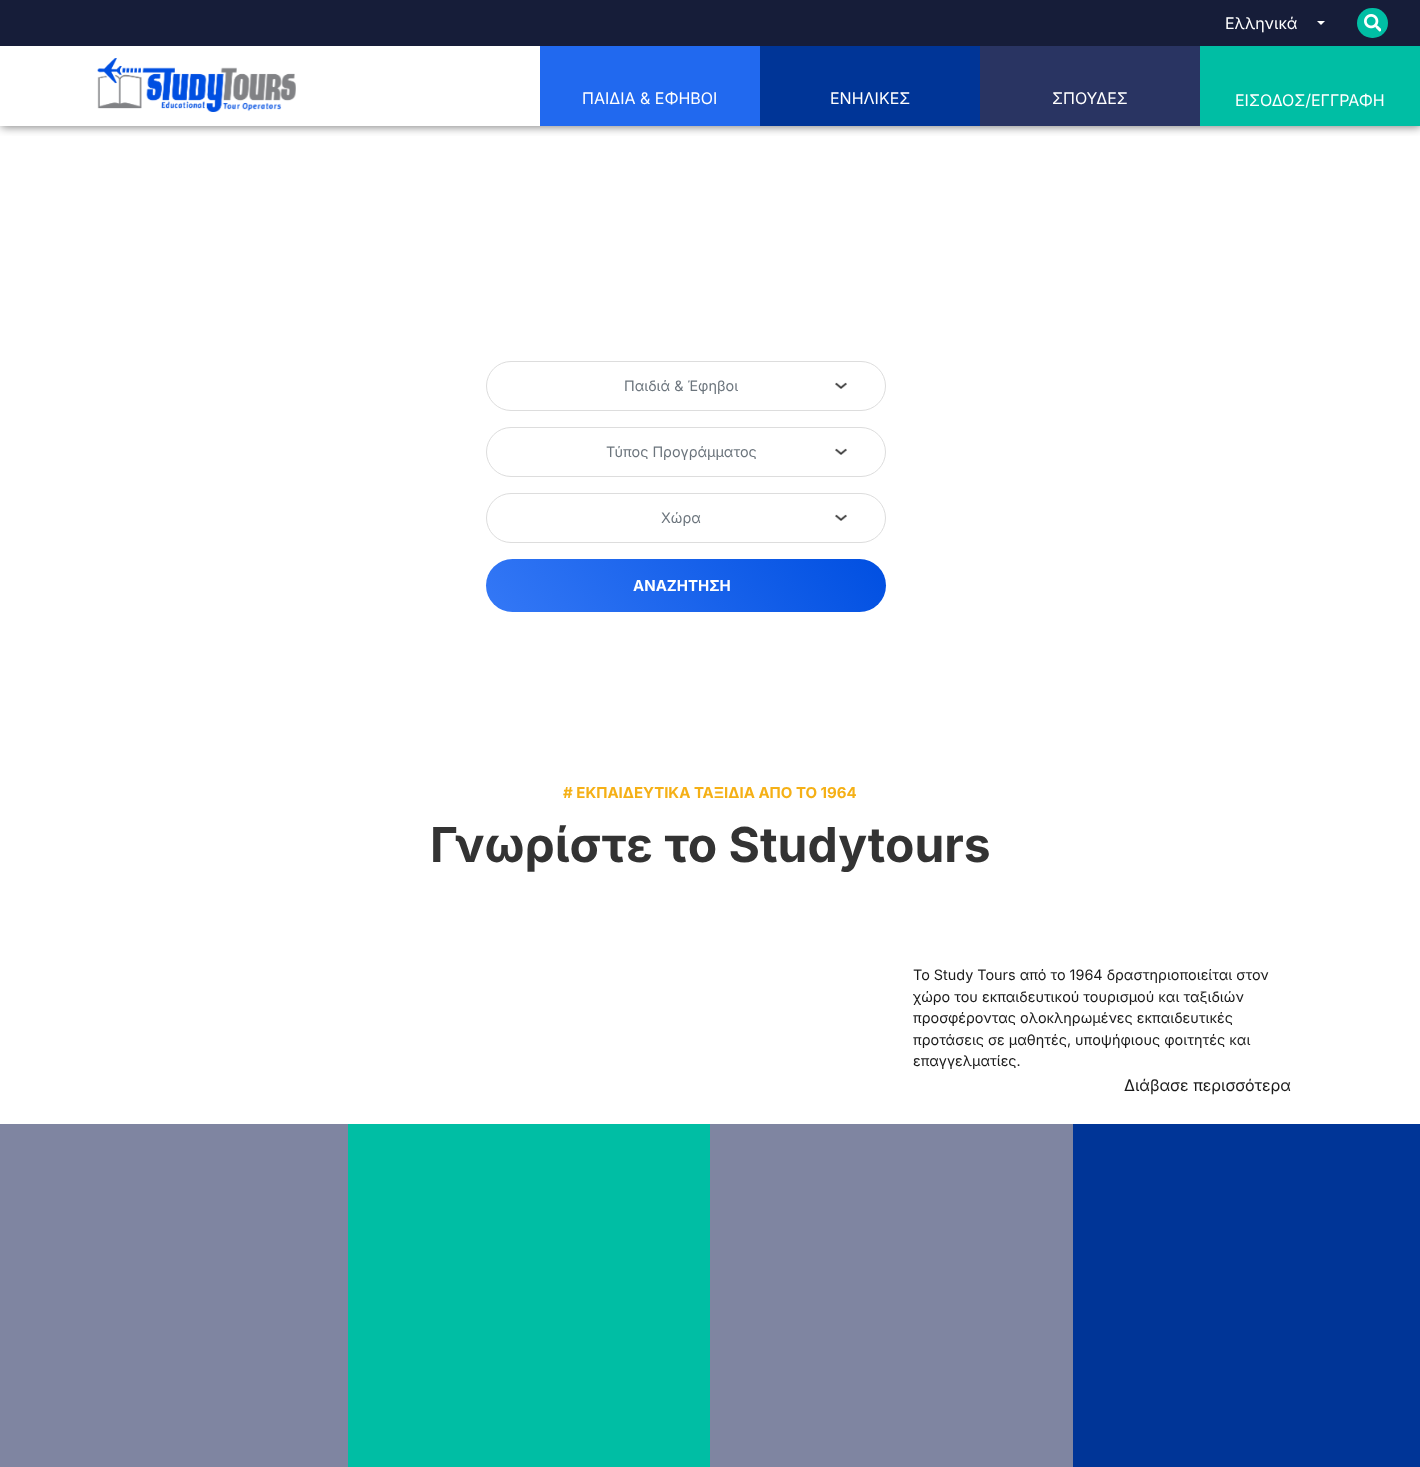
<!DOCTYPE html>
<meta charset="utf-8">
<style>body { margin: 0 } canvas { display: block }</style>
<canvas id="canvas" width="1420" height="1467"></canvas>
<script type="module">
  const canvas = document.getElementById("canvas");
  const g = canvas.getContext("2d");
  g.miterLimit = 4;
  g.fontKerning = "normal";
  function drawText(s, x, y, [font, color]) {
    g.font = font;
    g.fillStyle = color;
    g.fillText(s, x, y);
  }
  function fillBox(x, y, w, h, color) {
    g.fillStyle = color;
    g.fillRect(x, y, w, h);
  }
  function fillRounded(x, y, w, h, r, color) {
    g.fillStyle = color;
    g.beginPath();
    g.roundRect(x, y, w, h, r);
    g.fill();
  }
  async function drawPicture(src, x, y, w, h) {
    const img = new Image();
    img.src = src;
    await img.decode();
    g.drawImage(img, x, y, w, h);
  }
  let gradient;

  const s1 = ["16px Inter", "#FFFFFF"];
  const s2 = ["14.4px Inter", "#6C757D"];
  const s3 = ["bold 15px Inter", "#FFFFFF"];
  const s4 = ["bold 15px Inter", "#F5B016"];
  const s5 = ["bold 48px Inter", "#333333"];
  const s6 = ["14.4px Inter", "#1A1A1A"];
  const s7 = ["16px Inter", "#1A1A1A"];

  fillBox(0, 0, 1420, 1467, "#FFFFFF");
  g.save();
  g.beginPath();
  g.rect(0, 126, 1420, 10);
  g.clip();
  g.fillStyle = "rgba(0, 0, 0, 0.5)";
  g.filter = "blur(5px)";
  g.beginPath();
  g.rect(1, 1, 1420, 126);
  g.fill();
  g.filter = "none";
  g.restore();
  fillBox(0, 0, 1420, 46, "#161D39");
  drawText("Ελληνικά", 1225, 29, s1);
  g.beginPath();
  g.moveTo(1317, 21);
  g.lineTo(1325, 21);
  g.lineTo(1321, 25);
  g.closePath();
  g.fill();
  fillRounded(1357, 8, 31, 30, 15, "#00BEA4");
  await drawPicture("pic1.png", 1364, 14, 17, 18);
  await drawPicture("pic2.png", 97, 58, 199, 54);
  fillBox(540, 46, 220, 80, "#2169EF");
  drawText("ΠΑΙΔΙΑ & ΕΦΗΒΟΙ", 582, 104, s1);
  fillBox(760, 46, 220, 80, "#003597");
  drawText("ΕΝΗΛΙΚΕΣ", 830, 104, s1);
  fillBox(980, 46, 220, 80, "#293462");
  drawText("ΣΠΟΥΔΕΣ", 1052, 104, s1);
  fillBox(1200, 46, 220, 80, "#00BEA4");
  drawText("ΕΙΣΟΔΟΣ/ΕΓΓΡΑΦΗ", 1235, 106, s1);
  await drawPicture("pic3.png", 835, 382, 12, 7);
  g.beginPath();
  g.roundRect(486.5, 361.5, 399, 49, 24.5);
  g.strokeStyle = "#DDDDDD";
  g.stroke();
  drawText("Παιδιά & Έφηβοι", 624, 391, s2);
  await drawPicture("pic3.png", 835, 448, 12, 7);
  g.beginPath();
  g.roundRect(486.5, 427.5, 399, 49, 24.5);
  g.stroke();
  drawText("Τύπος Προγράμματος", 606, 457, s2);
  await drawPicture("pic3.png", 835, 514, 12, 7);
  g.beginPath();
  g.roundRect(486.5, 493.5, 399, 49, 24.5);
  g.stroke();
  drawText("Χώρα", 661, 523, s2);
  gradient = g.createLinearGradient(816, 476, 556, 695);
  gradient.addColorStop(0, "#004FE1");
  gradient.addColorStop(1, "#3478F6");
  g.fillStyle = gradient;
  g.beginPath();
  g.roundRect(486, 559, 400, 53, 26.5);
  g.fill();
  drawText("ΑΝΑΖΗΤΗΣΗ", 633, 591, s3);
  drawText("# ΕΚΠΑΙΔΕΥΤΙΚΑ ΤΑΞΙΔΙΑ ΑΠΟ ΤΟ 1964", 563, 798, s4);
  drawText("Γνωρίστε το Studytours", 430, 862, s5);
  drawText("Το Study Tours από το 1964 δραστηριοποιείται στον", 913, 980, s6);
  drawText("χώρο του εκπαιδευτικού τουρισμού και ταξιδιών", 913, 1002, s6);
  drawText("προσφέροντας ολοκληρωμένες εκπαιδευτικές", 913, 1023, s6);
  drawText("προτάσεις σε μαθητές, υποψήφιους φοιτητές και", 913, 1045, s6);
  drawText("επαγγελματίες.", 913, 1066, s6);
  drawText("Διάβασε περισσότερα", 1124, 1091, s7);
  fillBox(0, 1124, 348, 343, "#7F85A1");
  fillBox(348, 1124, 362, 343, "#00BEA4");
  fillBox(710, 1124, 363, 343, "#7F85A1");
  fillBox(1073, 1124, 347, 343, "#003597");
</script>
